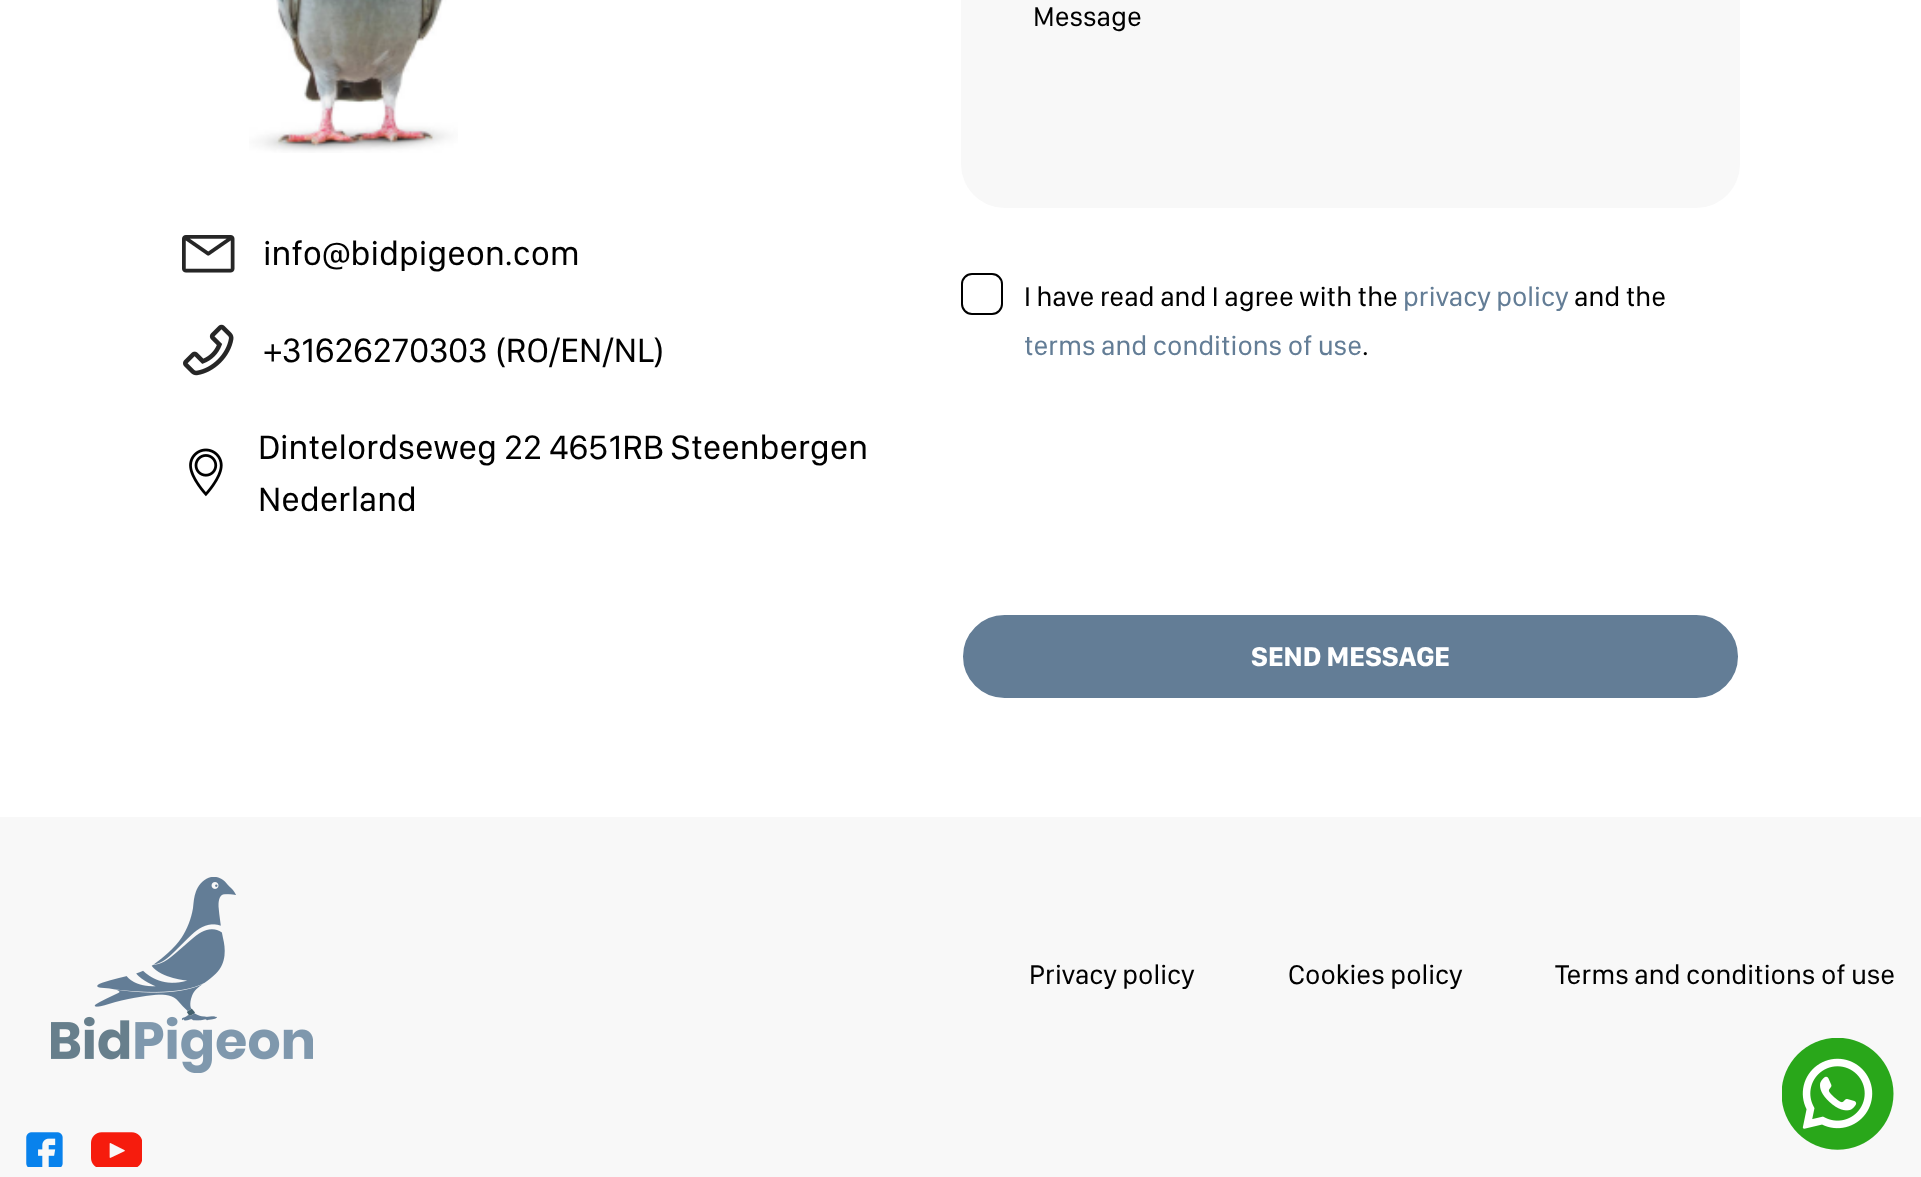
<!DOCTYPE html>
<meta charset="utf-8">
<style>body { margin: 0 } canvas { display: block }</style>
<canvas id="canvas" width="1921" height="1177"></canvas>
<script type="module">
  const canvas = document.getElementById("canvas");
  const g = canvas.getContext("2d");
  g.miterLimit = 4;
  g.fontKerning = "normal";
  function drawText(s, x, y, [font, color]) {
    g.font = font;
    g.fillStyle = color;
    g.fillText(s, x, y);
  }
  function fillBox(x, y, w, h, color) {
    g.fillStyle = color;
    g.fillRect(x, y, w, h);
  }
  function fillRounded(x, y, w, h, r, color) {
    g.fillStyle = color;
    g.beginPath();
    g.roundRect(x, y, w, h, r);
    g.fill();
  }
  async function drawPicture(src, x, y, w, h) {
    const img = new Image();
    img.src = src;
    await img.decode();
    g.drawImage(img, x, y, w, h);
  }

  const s1 = ["35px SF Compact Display", "#000000"];
  const s2 = ["28px SF Compact Display", "#000000"];
  const s3 = ["28px SF Compact Display", "#637D96"];
  const s4 = ["bold 28px SF Compact Display", "#FFFFFF"];

  fillBox(0, 0, 1921, 1177, "#FFFFFF");
  await drawPicture("pic1.png", 249, 0, 209, 153);
  await drawPicture("pic2.png", 182, 235, 53, 38);
  drawText("info@bidpigeon.com", 263, 265, s1);
  await drawPicture("pic3.png", 183, 324, 51, 52);
  drawText("+31626270303 (RO/EN/NL)", 263, 362, s1);
  await drawPicture("pic4.png", 189, 448, 34, 49);
  drawText("Dintelordseweg 22 4651RB Steenbergen", 258, 459, s1);
  drawText("Nederland", 258, 511, s1);
  fillRounded(961, -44, 779, 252, 44, "#F8F8F8");
  drawText("Message", 1033, 26, s2);
  g.beginPath();
  g.roundRect(962, 274, 40, 40, 10);
  g.strokeStyle = "#000000";
  g.lineWidth = 2;
  g.stroke();
  drawText("I have read and I agree with the", 1024, 306, s2);
  drawText("privacy policy", 1403, 306, s3);
  drawText("and the", 1574, 306, s2);
  drawText("terms and conditions of use", 1024, 355, s3);
  drawText(".", 1362, 355, s2);
  g.fillStyle = "#637D96";
  g.beginPath();
  g.roundRect(962, 614, 777, 85, 42.5);
  g.fill();
  g.strokeStyle = "#FFFFFF";
  g.stroke();
  drawText("SEND MESSAGE", 1251, 666, s4);
  fillBox(0, 817, 1921, 360, "#F8F8F8");
  await drawPicture("pic5.png", 51, 877, 262, 196);
  drawText("Privacy policy", 1029, 984, s2);
  drawText("Cookies policy", 1288, 984, s2);
  drawText("Terms and conditions of use", 1555, 984, s2);
  await drawPicture("pic6.png", 26, 1132, 37, 35);
  await drawPicture("pic7.png", 91, 1132, 51, 35);
  await drawPicture("pic8.png", 1782, 1038, 112, 112);
</script>
